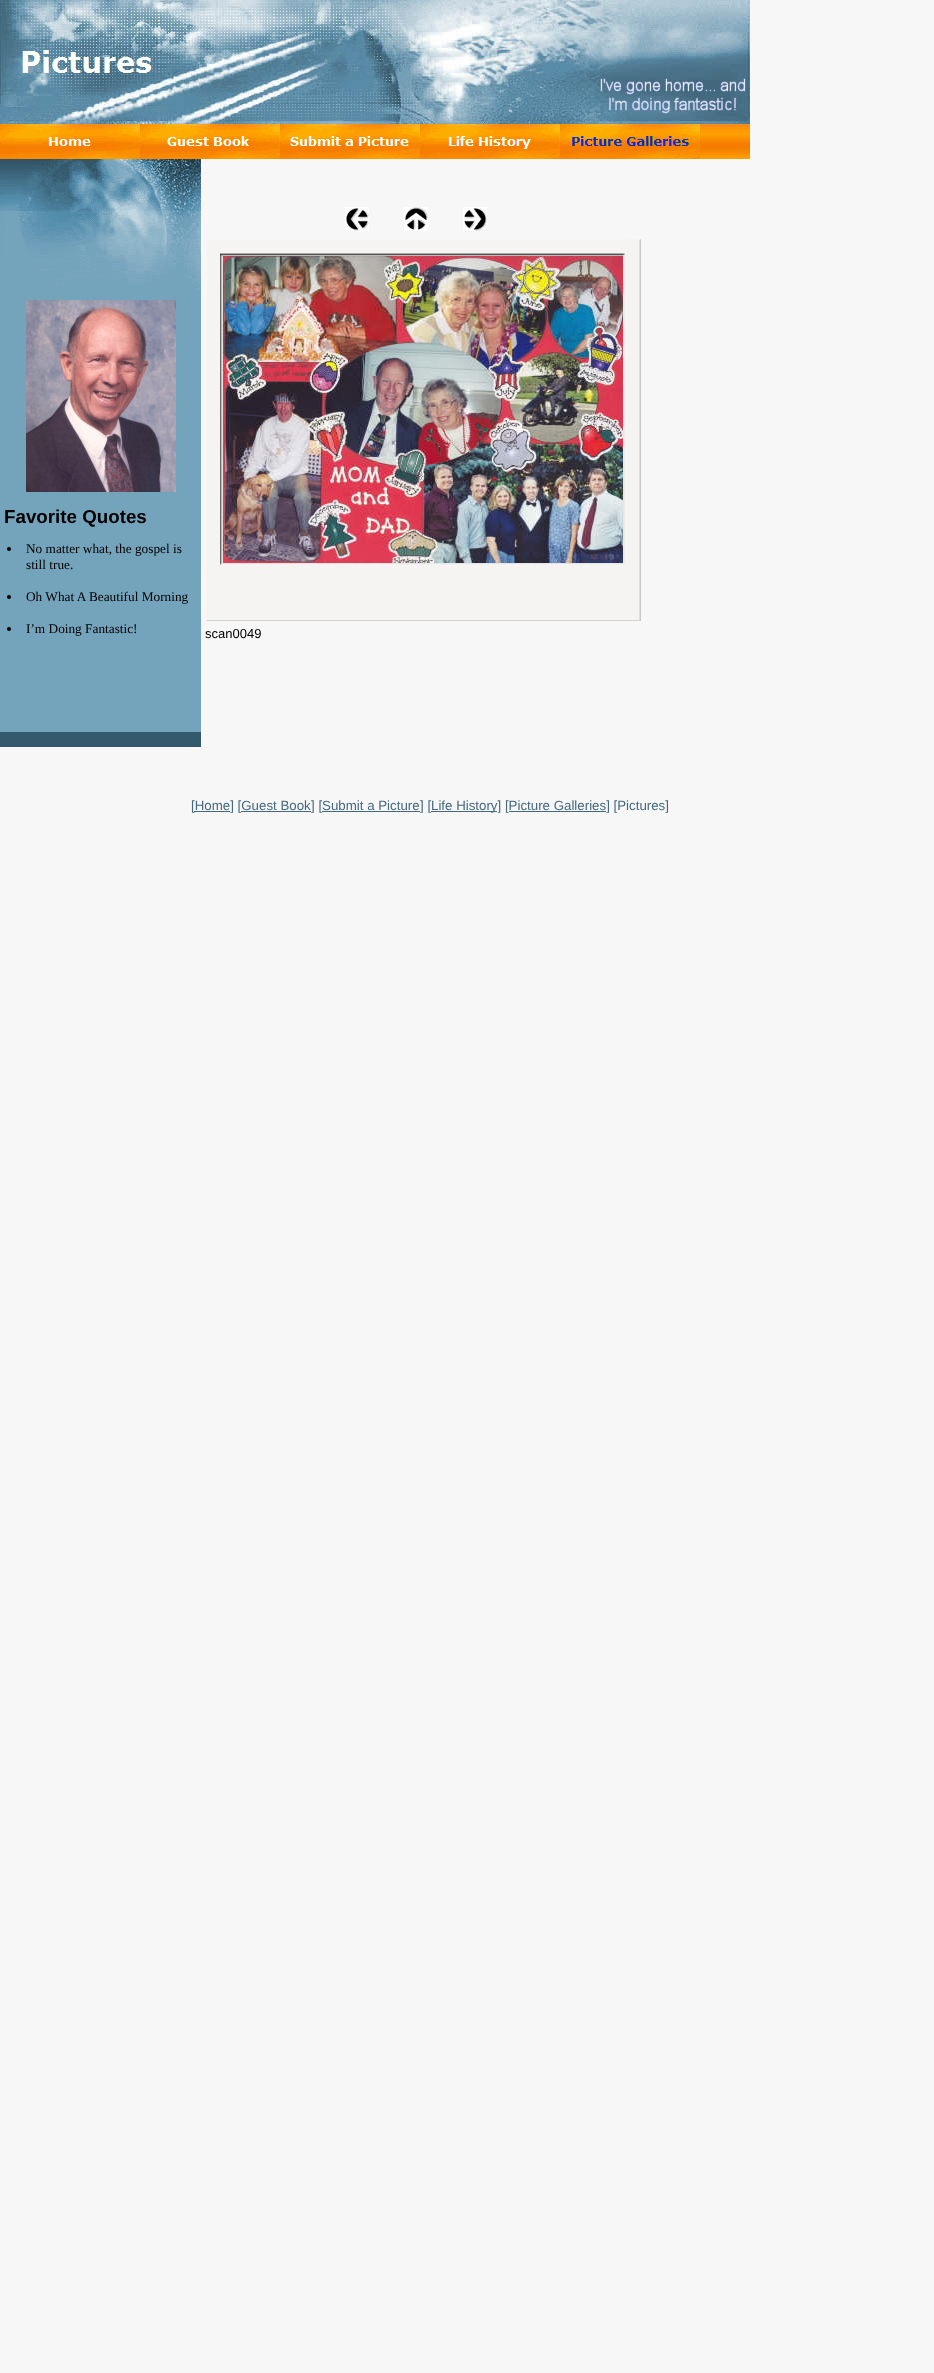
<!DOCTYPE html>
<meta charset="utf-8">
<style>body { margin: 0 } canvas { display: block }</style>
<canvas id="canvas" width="934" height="2373"></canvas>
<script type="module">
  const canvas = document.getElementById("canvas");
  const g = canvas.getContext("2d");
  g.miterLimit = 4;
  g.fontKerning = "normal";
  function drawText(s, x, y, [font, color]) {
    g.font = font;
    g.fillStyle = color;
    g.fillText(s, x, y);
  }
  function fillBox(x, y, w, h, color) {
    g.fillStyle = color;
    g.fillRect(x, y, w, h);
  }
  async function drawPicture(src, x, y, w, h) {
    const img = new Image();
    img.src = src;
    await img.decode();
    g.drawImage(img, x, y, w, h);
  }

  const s1 = ["bold 18.75px Liberation Sans", "#000000"];
  const s2 = ["13.3px Liberation Serif", "#000000"];
  const s3 = ["13px Liberation Sans", "#000000"];
  const s4 = ["13.3px Liberation Sans", "#44687E"];

  fillBox(0, 0, 934, 2373, "#F7F7F7");
  await drawPicture("pic1.png", 0, 0, 750, 124);
  await drawPicture("pic2.png", 700, 124, 50, 35);
  await drawPicture("pic3.png", 0, 124, 140, 35);
  await drawPicture("pic4.png", 140, 124, 140, 35);
  await drawPicture("pic5.png", 280, 124, 140, 35);
  await drawPicture("pic6.png", 420, 124, 140, 35);
  await drawPicture("pic7.png", 560, 124, 140, 35);
  fillBox(0, 292, 201, 440, "#74A3BC");
  await drawPicture("pic8.png", 0, 159, 201, 133);
  await drawPicture("pic9.png", 26, 300, 150, 192);
  drawText("Favorite Quotes", 4, 523, s1);
  g.beginPath();
  g.arc(9, 549, 2, 0, Math.PI * 2);
  g.fill();
  drawText("No matter what, the gospel is", 26, 553, s2);
  drawText("still true.", 26, 569, s2);
  g.beginPath();
  g.arc(9, 597, 2, 0, Math.PI * 2);
  g.fill();
  drawText("Oh What A Beautiful Morning", 26, 601, s2);
  g.beginPath();
  g.arc(9, 629, 2, 0, Math.PI * 2);
  g.fill();
  drawText("I’m Doing Fantastic!", 26, 633, s2);
  fillBox(0, 732, 201, 15, "#34586C");
  await drawPicture("pic10.png", 345, 207, 24, 24);
  await drawPicture("pic11.png", 404, 207, 24, 24);
  await drawPicture("pic12.png", 463, 207, 24, 24);
  await drawPicture("pic13.png", 207, 240, 16, 16);
  await drawPicture("pic14.png", 223, 240, 400, 16);
  await drawPicture("pic15.png", 623, 239, 18, 17);
  await drawPicture("pic16.png", 207, 256, 16, 307);
  await drawPicture("pic17.png", 223, 256, 400, 307);
  await drawPicture("pic18.png", 623, 256, 18, 307);
  await drawPicture("pic19.png", 206, 563, 17, 58);
  await drawPicture("pic20.png", 223, 563, 400, 58);
  await drawPicture("pic21.png", 623, 563, 18, 58);
  drawText("scan0049", 205, 638, s3);
  drawText("[Home] [Guest Book", 191, 810, s4);
  fillBox(241, 811, 70, 1, "#44687E");
  drawText("] [Submit a Picture", 311, 810, s4);
  fillBox(322, 811, 98, 1, "#44687E");
  drawText("] [", 420, 810, s4);
  fillBox(431, 811, 66, 1, "#44687E");
  drawText("Life History] [Picture Galleries] [Pictures]", 431, 810, s4);
  fillBox(194, 811, 36, 1, "#44687E");
  fillBox(509, 811, 97, 1, "#44687E");
</script>
